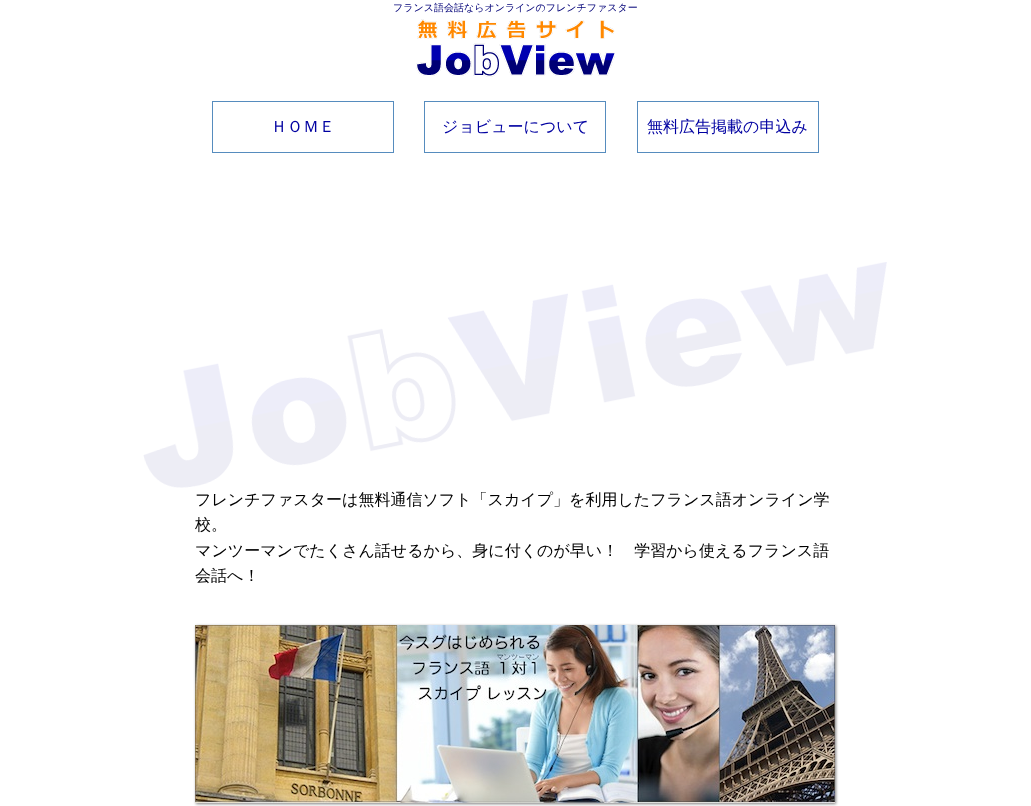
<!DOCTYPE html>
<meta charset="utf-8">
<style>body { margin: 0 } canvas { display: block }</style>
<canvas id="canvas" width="1031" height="806"></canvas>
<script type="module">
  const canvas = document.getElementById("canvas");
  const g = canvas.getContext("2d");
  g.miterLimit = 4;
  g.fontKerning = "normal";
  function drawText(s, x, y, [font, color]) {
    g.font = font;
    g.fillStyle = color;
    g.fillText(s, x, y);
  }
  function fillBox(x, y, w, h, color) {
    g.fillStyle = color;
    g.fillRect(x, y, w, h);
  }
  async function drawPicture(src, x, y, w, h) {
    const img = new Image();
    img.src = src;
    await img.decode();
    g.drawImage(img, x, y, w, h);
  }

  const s1 = ["500 10px WenQuanYi Zen Hei", "#000077"];
  const s2 = ["500 16px WenQuanYi Zen Hei", "#0000A1"];
  const s3 = ["500 16px WenQuanYi Zen Hei", "#000000"];

  fillBox(0, 0, 1031, 806, "#FFFFFF");
  await drawPicture("pic1.png", 143, 262, 744, 226);
  drawText("フランス語会話ならオンラインのフレンチファスター", 393, 11, s1);
  await drawPicture("pic2.png", 416, 19, 199, 58);
  g.strokeStyle = "#568CBE";
  g.strokeRect(212.5, 101.5, 181, 51);
  drawText("ＨＯＭＥ", 271, 132, s2);
  g.strokeRect(424.5, 101.5, 181, 51);
  drawText("ジョビューについて", 442, 132, s2);
  g.strokeRect(637.5, 101.5, 181, 51);
  drawText("無料広告掲載の申込み", 647, 132, s2);
  drawText("フレンチファスターは無料通信ソフト「スカイプ」を利用したフランス語オンライン学", 195, 505, s3);
  drawText("校。", 195, 530, s3);
  drawText("マンツーマンでたくさん話せるから、身に付くのが早い！　学習から使えるフランス語", 195, 556, s3);
  drawText("会話へ！", 195, 581, s3);
  g.fillStyle = "#808080";
  g.filter = "blur(1.5px)";
  g.beginPath();
  g.rect(196, 626, 640, 178);
  g.fill();
  g.filter = "none";
  await drawPicture("pic3.png", 195, 625, 640, 178);
</script>
